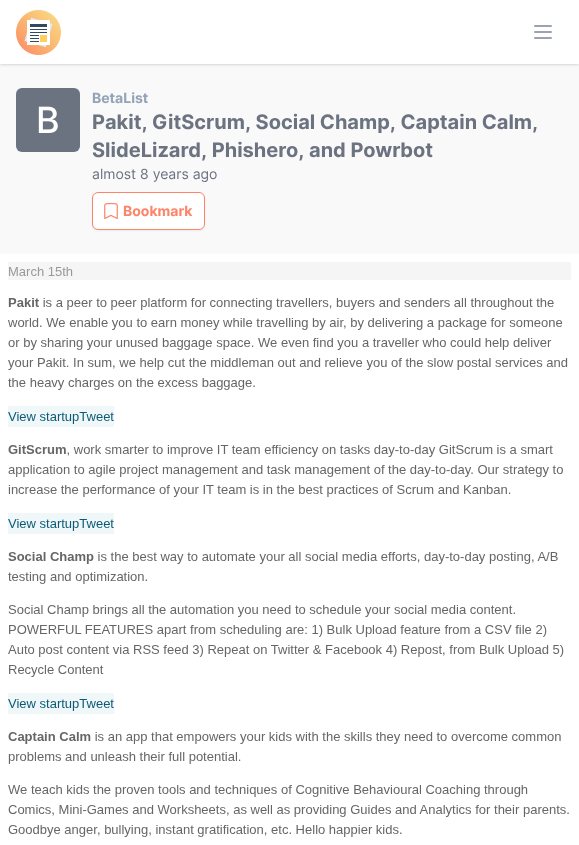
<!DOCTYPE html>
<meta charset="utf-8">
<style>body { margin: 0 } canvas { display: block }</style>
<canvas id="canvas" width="579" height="845"></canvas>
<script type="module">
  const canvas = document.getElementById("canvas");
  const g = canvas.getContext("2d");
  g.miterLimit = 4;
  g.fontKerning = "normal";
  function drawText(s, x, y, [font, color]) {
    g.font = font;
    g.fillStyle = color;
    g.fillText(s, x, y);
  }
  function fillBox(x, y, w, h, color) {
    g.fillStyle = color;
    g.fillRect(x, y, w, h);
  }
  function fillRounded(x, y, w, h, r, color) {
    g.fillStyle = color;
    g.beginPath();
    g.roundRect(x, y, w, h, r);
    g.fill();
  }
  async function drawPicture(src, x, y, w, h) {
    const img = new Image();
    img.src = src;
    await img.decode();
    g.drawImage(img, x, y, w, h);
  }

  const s1 = ["500 36px Inter", "#FFFFFF"];
  const s2 = ["bold 14px Inter", "#94A3B8"];
  const s3 = ["bold 20px Inter", "#6B7280"];
  const s4 = ["14px Inter", "#6B7280"];
  const s5 = ["bold 14px Inter", "#FD8469"];

  fillBox(0, 0, 579, 845, "#F9F9F9");
  g.fillStyle = "rgba(0, 0, 0, 0.1)";
  g.filter = "blur(1px)";
  g.beginPath();
  g.rect(1, 2, 577, 62);
  g.fill();
  g.filter = "none";
  g.filter = "blur(1.5px)";
  g.beginPath();
  g.rect(0, 1, 579, 64);
  g.fill();
  g.filter = "none";
  fillBox(0, 0, 579, 64, "#FFFFFF");
  await drawPicture("pic1.png", 16, 10, 45, 45);
  g.beginPath();
  g.moveTo(535, 26);
  g.lineTo(551, 26);
  g.moveTo(535, 32);
  g.lineTo(551, 32);
  g.moveTo(535, 38);
  g.lineTo(551, 38);
  g.strokeStyle = "#9CA3AF";
  g.lineWidth = 2;
  g.lineCap = "round";
  g.lineJoin = "round";
  g.stroke();
  fillRounded(16, 88, 64, 64, 6, "#6B7280");
  drawText("B", 36, 133, s1);
  drawText("BetaList", 92, 103, s2);
  drawText("Pakit, GitScrum, Social Champ, Captain Calm,", 92, 129, s3);
  drawText("SlideLizard, Phishero, and Powrbot", 92, 157, s3);
  drawText("almost 8 years ago", 92, 179, s4);
  g.fillStyle = "rgba(0, 0, 0, 0.05)";
  g.filter = "blur(1px)";
  g.beginPath();
  g.roundRect(92, 193, 113, 38, 6);
  g.fill();
  g.filter = "none";
  g.fillStyle = "#FFFFFF";
  g.beginPath();
  g.roundRect(92.5, 192.5, 112, 37, 5.5);
  g.fill();
  g.strokeStyle = "#FD8469";
  g.lineWidth = 1;
  g.lineJoin = "miter";
  g.stroke();
  await drawPicture("pic2.png", 104, 202, 14, 18);
  drawText("Bookmark", 123, 216, s5);
  fillBox(0, 254, 579, 591, "#FFFFFF");
  await drawPicture("pic3.png", 8, 262, 563, 575);
</script>
